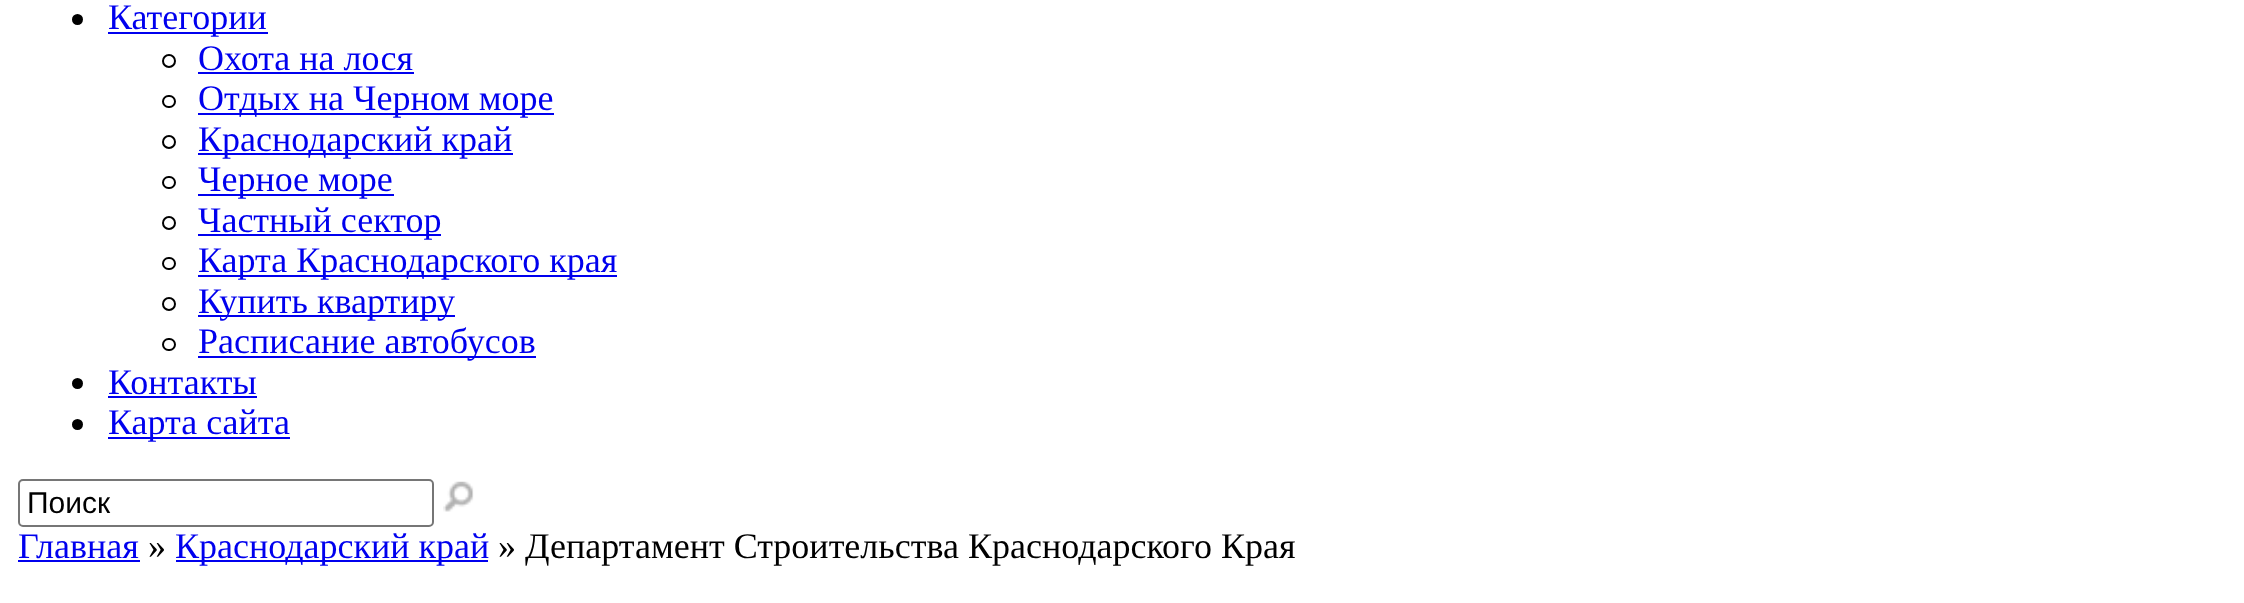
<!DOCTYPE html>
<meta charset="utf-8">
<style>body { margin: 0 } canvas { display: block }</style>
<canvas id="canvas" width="2244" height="603"></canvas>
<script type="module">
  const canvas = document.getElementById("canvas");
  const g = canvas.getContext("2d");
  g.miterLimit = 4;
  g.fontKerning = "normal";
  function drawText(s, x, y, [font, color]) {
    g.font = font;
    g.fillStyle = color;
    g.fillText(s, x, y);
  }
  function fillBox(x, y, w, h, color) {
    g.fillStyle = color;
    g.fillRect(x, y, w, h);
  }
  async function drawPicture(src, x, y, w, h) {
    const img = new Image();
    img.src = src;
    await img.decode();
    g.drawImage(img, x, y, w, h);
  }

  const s1 = ["36px Liberation Serif", "#0000EE"];
  const s2 = ["30px Liberation Sans", "#000000"];
  const s3 = ["36px Liberation Serif", "#000000"];

  fillBox(0, 0, 2244, 603, "#FFFFFF");
  g.fillStyle = "#000000";
  g.beginPath();
  g.arc(77.5, 19.5, 5.5, 0, Math.PI * 2);
  g.fill();
  fillBox(108, 32, 160, 2, "#0000EE");
  drawText("Категории", 108, 29, s1);
  g.beginPath();
  g.arc(169, 61, 6, 0, Math.PI * 2);
  g.strokeStyle = "#000000";
  g.lineWidth = 2;
  g.stroke();
  drawText("Охота на лося", 198, 70, s1);
  fillBox(198, 72, 216, 2, "#0000EE");
  g.beginPath();
  g.roundRect(163, 96, 12, 11, 5.5);
  g.stroke();
  fillBox(198, 113, 356, 2, "#0000EE");
  drawText("Отдых на Черном море", 198, 110, s1);
  g.beginPath();
  g.arc(169, 142, 6, 0, Math.PI * 2);
  g.stroke();
  fillBox(198, 153, 315, 2, "#0000EE");
  drawText("Краснодарский край", 198, 151, s1);
  g.beginPath();
  g.roundRect(163, 177, 12, 11, 5.5);
  g.stroke();
  fillBox(198, 194, 196, 2, "#0000EE");
  drawText("Черное море", 198, 191, s1);
  g.beginPath();
  g.arc(169, 223, 6, 0, Math.PI * 2);
  g.stroke();
  fillBox(198, 234, 243, 2, "#0000EE");
  drawText("Частный сектор", 198, 232, s1);
  g.beginPath();
  g.roundRect(163, 258, 12, 11, 5.5);
  g.stroke();
  fillBox(198, 275, 419, 2, "#0000EE");
  drawText("Карта Краснодарского края", 198, 272, s1);
  g.beginPath();
  g.arc(169, 304, 6, 0, Math.PI * 2);
  g.stroke();
  fillBox(198, 315, 257, 2, "#0000EE");
  drawText("Купить квартиру", 198, 313, s1);
  g.beginPath();
  g.roundRect(163, 339, 12, 11, 5.5);
  g.stroke();
  fillBox(198, 356, 338, 2, "#0000EE");
  drawText("Расписание автобусов", 198, 353, s1);
  g.fillStyle = "#000000";
  g.beginPath();
  g.arc(77.5, 383.5, 5.5, 0, Math.PI * 2);
  g.fill();
  drawText("Контакты", 108, 394, s1);
  fillBox(108, 396, 149, 2, "#0000EE");
  g.fillStyle = "#000000";
  g.beginPath();
  g.arc(77.5, 424.5, 5.5, 0, Math.PI * 2);
  g.fill();
  fillBox(108, 437, 182, 2, "#0000EE");
  drawText("Карта сайта", 108, 434, s1);
  g.beginPath();
  g.roundRect(19, 480, 414, 46, 4);
  g.strokeStyle = "#767676";
  g.stroke();
  drawText("Поиск", 27, 513, s2);
  await drawPicture("pic1.png", 443, 481, 31, 31);
  drawText("Главная", 18, 558, s1);
  fillBox(18, 560, 122, 2, "#0000EE");
  drawText("»", 148, 558, s3);
  fillBox(176, 560, 312, 2, "#0000EE");
  drawText("Краснодарский край", 175, 558, s1);
  drawText("» Департамент Строительства Краснодарского Края", 498, 558, s3);
</script>
